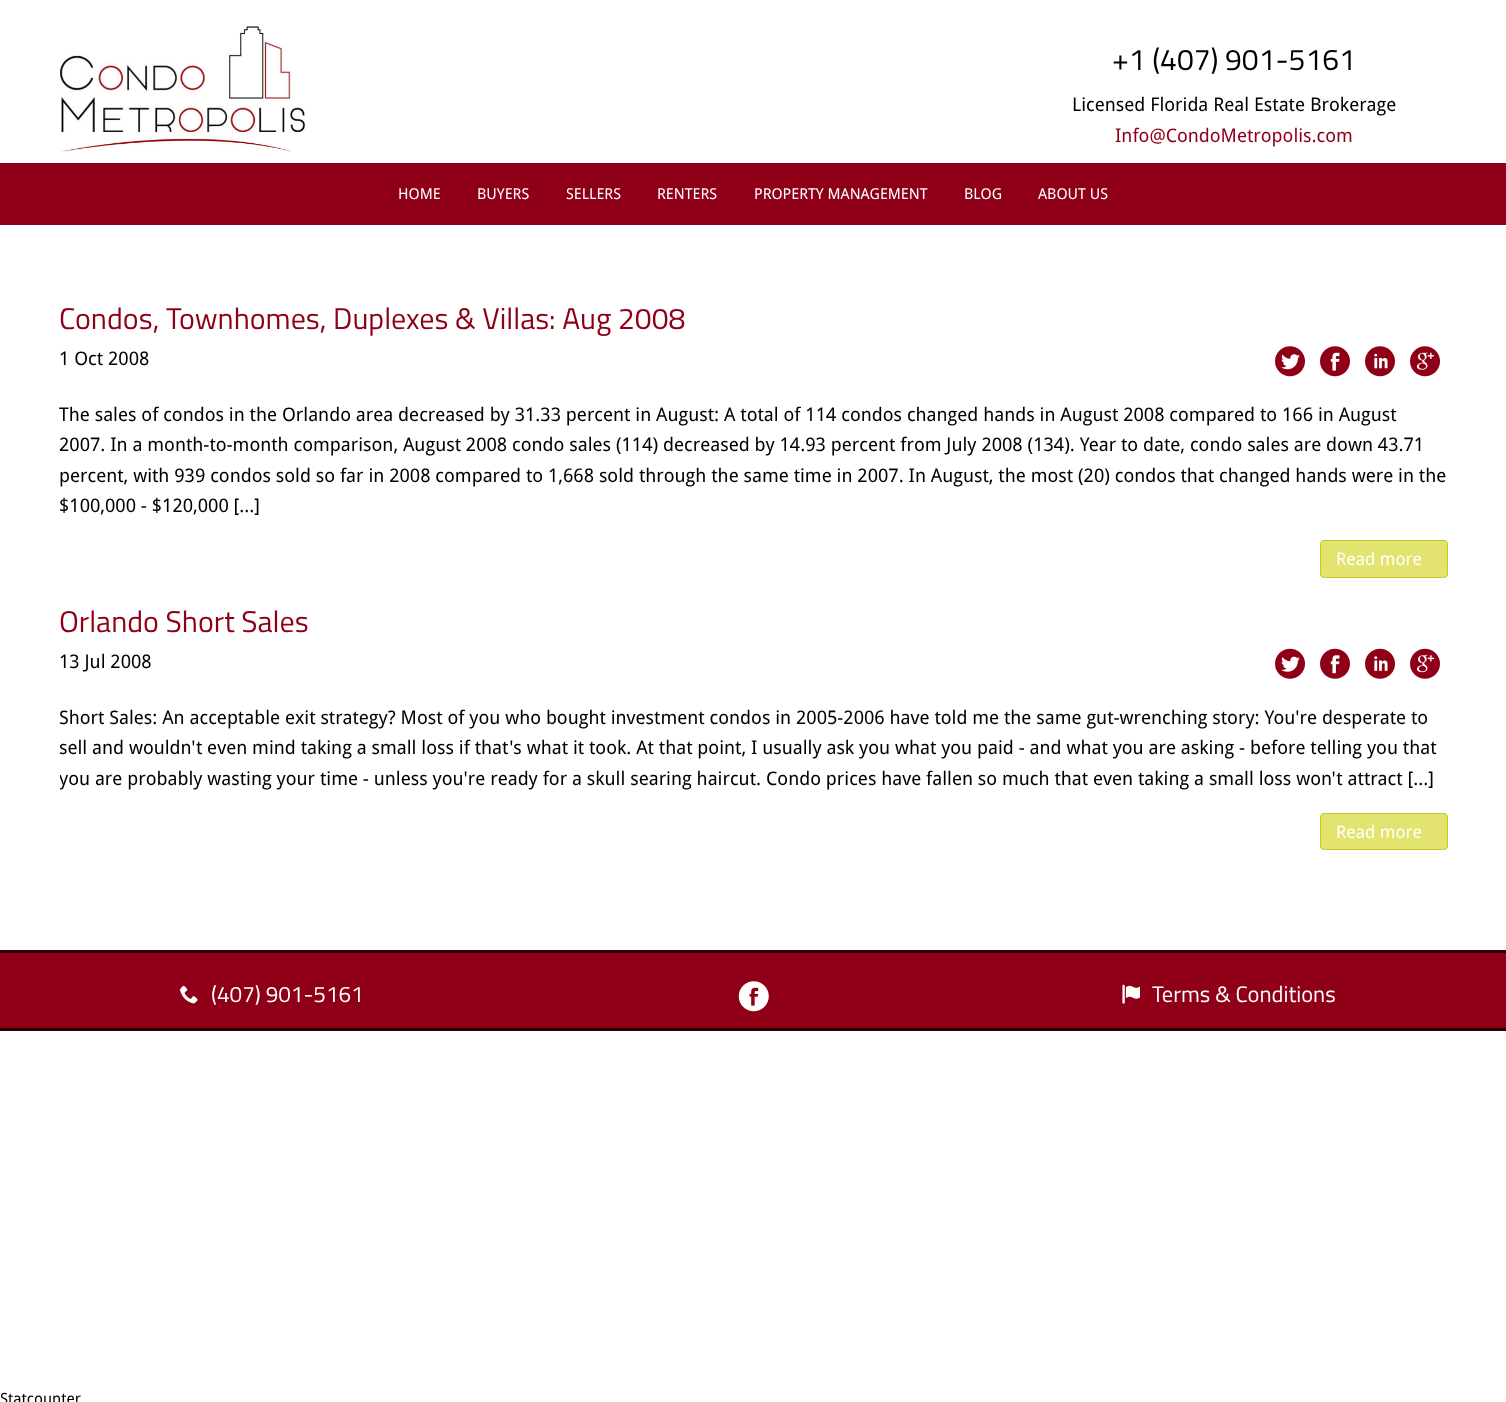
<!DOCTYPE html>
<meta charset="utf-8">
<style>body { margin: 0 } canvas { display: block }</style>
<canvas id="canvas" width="1506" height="1402"></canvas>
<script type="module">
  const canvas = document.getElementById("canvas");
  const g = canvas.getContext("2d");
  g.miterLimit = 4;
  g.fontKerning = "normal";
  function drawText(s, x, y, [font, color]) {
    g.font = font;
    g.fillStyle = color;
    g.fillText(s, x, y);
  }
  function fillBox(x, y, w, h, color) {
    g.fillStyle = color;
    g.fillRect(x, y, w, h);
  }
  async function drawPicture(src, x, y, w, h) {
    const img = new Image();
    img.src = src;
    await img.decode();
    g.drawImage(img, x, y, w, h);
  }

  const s1 = ["30px Titillium Web", "#000000"];
  const s2 = ["18.75px Droid Sans", "#000000"];
  const s3 = ["18.75px Droid Sans", "#8F0018"];
  const s4 = ["15px Droid Sans", "#FFFFFF"];
  const s5 = ["30px Titillium Web", "#8F0018"];
  const s6 = ["17.5px Droid Sans", "#FFFFFF"];
  const s7 = ["22.5px Titillium Web", "#FFFFFF"];
  const s8 = ["15.5px Droid Sans", "#000000"];

  fillBox(0, 0, 1506, 1402, "#FFFFFF");
  await drawPicture("pic1.png", 60, 26, 246, 126);
  drawText("+1 (407) 901-5161", 1112, 70, s1);
  drawText("Licensed Florida Real Estate Brokerage", 1072, 111, s2);
  drawText("Info@CondoMetropolis.com", 1115, 142, s3);
  fillBox(0, 163, 1506, 62, "#8F0018");
  drawText("HOME", 398, 199, s4);
  drawText("BUYERS", 477, 199, s4);
  drawText("SELLERS", 566, 199, s4);
  drawText("RENTERS", 657, 199, s4);
  drawText("PROPERTY MANAGEMENT", 754, 199, s4);
  drawText("BLOG", 964, 199, s4);
  drawText("ABOUT US", 1038, 199, s4);
  drawText("Condos, Townhomes, Duplexes & Villas: Aug 2008", 59, 329, s5);
  drawText("1 Oct 2008", 59, 365, s2);
  await drawPicture("pic2.png", 1275, 346, 30, 31);
  await drawPicture("pic3.png", 1320, 346, 30, 31);
  await drawPicture("pic4.png", 1365, 346, 30, 31);
  await drawPicture("pic5.png", 1410, 346, 30, 31);
  drawText("The sales of condos in the Orlando area decreased by 31.33 percent in August: A total of 114 condos changed hands in August 2008 compared to 166 in August", 59, 421, s2);
  drawText("2007. In a month-to-month comparison, August 2008 condo sales (114) decreased by 14.93 percent from July 2008 (134). Year to date, condo sales are down 43.71", 59, 451, s2);
  drawText("percent, with 939 condos sold so far in 2008 compared to 1,668 sold through the same time in 2007. In August, the most (20) condos that changed hands were in the", 59, 482, s2);
  drawText("$100,000 - $120,000 [...]", 59, 512, s2);
  g.fillStyle = "#E3E36F";
  g.beginPath();
  g.roundRect(1320.5, 540.5, 127, 37, 3.5);
  g.fill();
  g.strokeStyle = "#C6C626";
  g.stroke();
  drawText("Read more", 1336, 565, s6);
  drawText("Orlando Short Sales", 59, 632, s5);
  drawText("13 Jul 2008", 59, 668, s2);
  await drawPicture("pic6.png", 1275, 648, 30, 31);
  await drawPicture("pic7.png", 1320, 648, 30, 31);
  await drawPicture("pic8.png", 1365, 648, 30, 31);
  await drawPicture("pic9.png", 1410, 648, 30, 31);
  drawText("Short Sales: An acceptable exit strategy? Most of you who bought investment condos in 2005-2006 have told me the same gut-wrenching story: You're desperate to", 59, 724, s2);
  drawText("sell and wouldn't even mind taking a small loss if that's what it took. At that point, I usually ask you what you paid - and what you are asking - before telling you that", 59, 754, s2);
  g.save();
  g.beginPath();
  g.rect(60, 300, 1388, 575);
  g.clip();
  drawText("you are probably wasting your time - unless you're ready for a skull searing haircut.", 59, 785, s2);
  g.restore();
  drawText("Condo prices have fallen so much that even taking a small loss won't attract [...]", 766, 785, s2);
  g.fillStyle = "#E3E36F";
  g.beginPath();
  g.roundRect(1320.5, 813.5, 127, 36, 3.5);
  g.fill();
  g.stroke();
  drawText("Read more", 1336, 838, s6);
  fillBox(0, 953, 1506, 75, "#8F0018");
  fillBox(0, 950, 1506, 3, "#290007");
  fillBox(0, 1028, 1506, 3, "#290007");
  await drawPicture("pic10.png", 180, 985, 18, 19);
  drawText("(407) 901-5161", 211, 1002, s7);
  await drawPicture("pic11.png", 738, 981, 31, 31);
  await drawPicture("pic12.png", 1122, 984, 18, 20);
  drawText("Terms & Conditions", 1152, 1002, s7);
  drawText("Statcounter", 0, 1404, s8);
</script>
